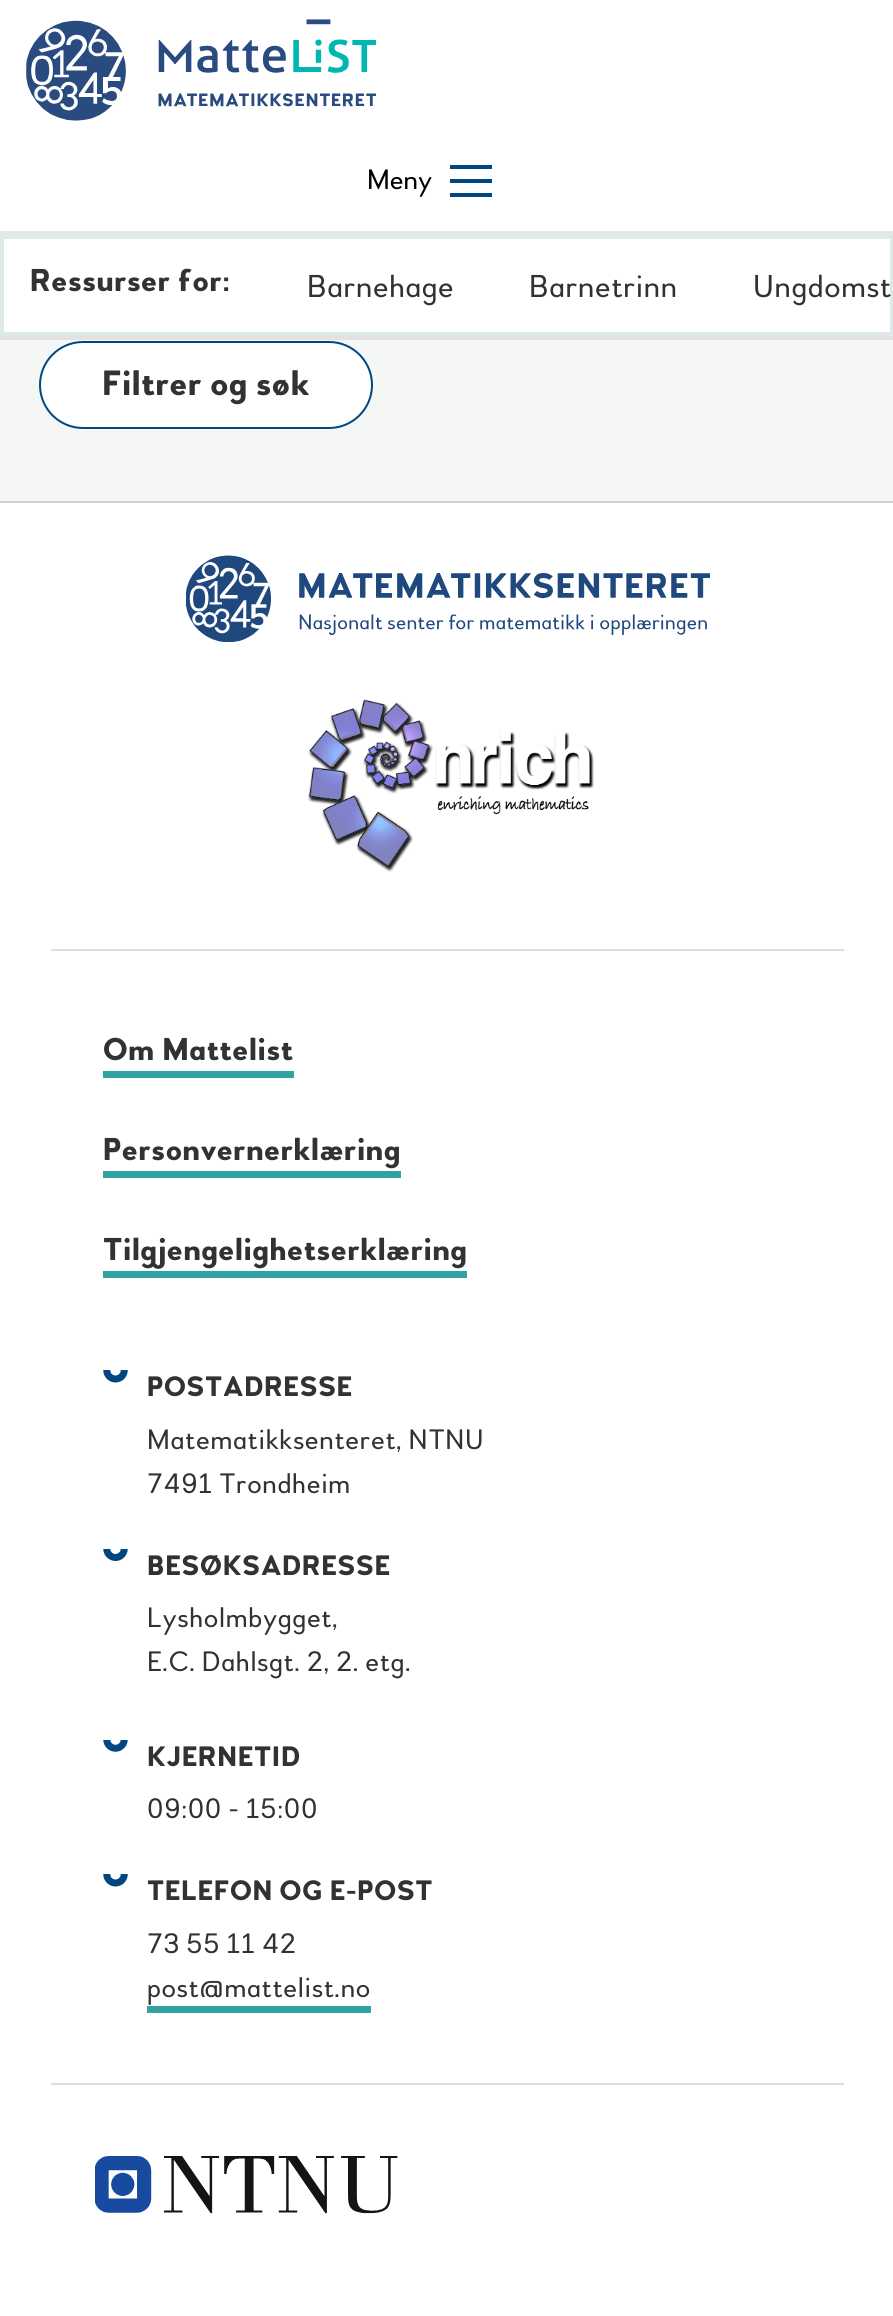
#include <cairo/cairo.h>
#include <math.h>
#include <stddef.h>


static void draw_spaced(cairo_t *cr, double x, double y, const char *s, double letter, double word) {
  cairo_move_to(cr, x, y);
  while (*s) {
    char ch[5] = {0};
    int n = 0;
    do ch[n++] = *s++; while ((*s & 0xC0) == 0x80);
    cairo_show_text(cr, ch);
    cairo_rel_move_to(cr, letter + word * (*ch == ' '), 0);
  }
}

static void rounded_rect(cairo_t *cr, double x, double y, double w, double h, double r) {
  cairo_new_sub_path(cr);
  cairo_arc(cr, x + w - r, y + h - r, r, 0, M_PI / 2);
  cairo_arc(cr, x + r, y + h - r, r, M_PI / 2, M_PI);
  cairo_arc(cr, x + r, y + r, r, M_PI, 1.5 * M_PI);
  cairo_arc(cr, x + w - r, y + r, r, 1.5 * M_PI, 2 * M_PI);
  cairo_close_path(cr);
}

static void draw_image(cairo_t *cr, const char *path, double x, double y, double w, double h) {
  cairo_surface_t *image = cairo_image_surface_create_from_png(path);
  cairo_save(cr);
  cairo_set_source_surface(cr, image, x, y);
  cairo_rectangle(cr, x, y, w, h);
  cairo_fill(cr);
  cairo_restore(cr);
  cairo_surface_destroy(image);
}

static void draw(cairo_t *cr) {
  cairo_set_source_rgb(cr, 244 / 255.0, 247 / 255.0, 246 / 255.0);
  cairo_paint(cr);
  cairo_set_source_rgb(cr, 1, 1, 1);
  cairo_rectangle(cr, 0, 0, 893, 332);
  cairo_fill(cr);
  cairo_set_source_rgb(cr, 226 / 255.0, 226 / 255.0, 226 / 255.0);
  cairo_rectangle(cr, 0, 336, 893, 4);
  cairo_fill(cr);
  cairo_set_source_rgb(cr, 224 / 255.0, 233 / 255.0, 233 / 255.0);
  cairo_rectangle(cr, 0, 231, 893, 4);
  cairo_fill(cr);
  draw_image(cr, "images/1.png", 26, 19, 350, 102);
  cairo_set_source_rgb(cr, 0, 70 / 255.0, 129 / 255.0);
  cairo_rectangle(cr, 450, 179, 42, 4);
  cairo_fill(cr);
  cairo_rectangle(cr, 450, 165, 42, 4);
  cairo_fill(cr);
  cairo_rectangle(cr, 450, 193, 42, 4);
  cairo_fill(cr);
  cairo_rectangle(cr, 2, 237, 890, 97);
  cairo_set_source_rgb(cr, 224 / 255.0, 233 / 255.0, 233 / 255.0);
  cairo_set_line_width(cr, 4);
  cairo_stroke(cr);
  cairo_set_source_rgb(cr, 1, 1, 1);
  rounded_rect(cr, 40, 342, 332, 86, 43);
  cairo_fill_preserve(cr);
  cairo_set_source_rgb(cr, 0, 70 / 255.0, 129 / 255.0);
  cairo_set_line_width(cr, 2);
  cairo_stroke(cr);
  cairo_set_source_rgb(cr, 1, 1, 1);
  cairo_rectangle(cr, 0, 503, 893, 1813);
  cairo_fill(cr);
  cairo_set_source_rgb(cr, 207 / 255.0, 211 / 255.0, 214 / 255.0);
  cairo_rectangle(cr, 0, 501, 893, 2);
  cairo_fill(cr);
  draw_image(cr, "images/2.png", 186, 555, 525, 87);
  draw_image(cr, "images/3.png", 308, 699, 286, 173);
  cairo_set_source_rgb(cr, 216 / 255.0, 224 / 255.0, 224 / 255.0);
  cairo_rectangle(cr, 51, 949, 793, 2);
  cairo_fill(cr);
  cairo_set_source_rgb(cr, 49 / 255.0, 160 / 255.0, 160 / 255.0);
  cairo_rectangle(cr, 103, 1071, 191, 7);
  cairo_fill(cr);
  cairo_rectangle(cr, 103, 1171, 298, 7);
  cairo_fill(cr);
  cairo_rectangle(cr, 103, 1271, 364, 7);
  cairo_fill(cr);
  draw_image(cr, "images/4.png", 103, 1370, 25, 13);
  draw_image(cr, "images/5.png", 103, 1549, 25, 12);
  draw_image(cr, "images/6.png", 103, 1740, 25, 12);
  draw_image(cr, "images/4.png", 103, 1874, 25, 13);
  cairo_rectangle(cr, 147, 2006, 224, 7);
  cairo_fill(cr);
  cairo_set_source_rgb(cr, 216 / 255.0, 224 / 255.0, 224 / 255.0);
  cairo_rectangle(cr, 51, 2083, 793, 2);
  cairo_fill(cr);
  draw_image(cr, "images/7.png", 95, 2156, 303, 58);
  cairo_select_font_face(cr, "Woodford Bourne", CAIRO_FONT_SLANT_NORMAL, CAIRO_FONT_WEIGHT_NORMAL);
  cairo_set_font_size(cr, 28);
  cairo_set_source_rgb(cr, 0, 0, 0);
  cairo_move_to(cr, 367, 189);
  cairo_show_text(cr, "Meny");
  cairo_select_font_face(cr, "Woodford Bourne", CAIRO_FONT_SLANT_NORMAL, CAIRO_FONT_WEIGHT_BOLD);
  cairo_set_font_size(cr, 31.5);
  cairo_set_source_rgb(cr, 49 / 255.0, 50 / 255.0, 51 / 255.0);
  draw_spaced(cr, 30, 291, "Ressurser for:", 0.7, 0);
  cairo_select_font_face(cr, "Woodford Bourne", CAIRO_FONT_SLANT_NORMAL, CAIRO_FONT_WEIGHT_NORMAL);
  draw_spaced(cr, 307, 297, "Barnehage", 0.7, 0);
  draw_spaced(cr, 529, 297, "Barnetrinn", 0.7, 0);
  draw_spaced(cr, 753, 297, "Ungdomst", 0.7, 0);
  cairo_select_font_face(cr, "Woodford Bourne", CAIRO_FONT_SLANT_NORMAL, CAIRO_FONT_WEIGHT_BOLD);
  cairo_set_font_size(cr, 35);
  draw_spaced(cr, 102, 395, "Filtrer og søk", 0.7, 0);
  cairo_set_font_size(cr, 31.5);
  draw_spaced(cr, 103, 1060, "Om Mattelist", 0.7, 0);
  draw_spaced(cr, 103, 1160, "Personvernerklæring", 0.7, 0);
  draw_spaced(cr, 103, 1260, "Tilgjengelighetserklæring", 0.7, 0);
  cairo_set_font_size(cr, 28);
  draw_spaced(cr, 147, 1396, "POSTADRESSE", 0.7, 0);
  cairo_select_font_face(cr, "Woodford Bourne", CAIRO_FONT_SLANT_NORMAL, CAIRO_FONT_WEIGHT_NORMAL);
  draw_spaced(cr, 147, 1449, "Matematikksenteret, NTNU", 0.7, 0);
  draw_spaced(cr, 147, 1493, "7491 Trondheim", 0.7, 0);
  cairo_select_font_face(cr, "Woodford Bourne", CAIRO_FONT_SLANT_NORMAL, CAIRO_FONT_WEIGHT_BOLD);
  draw_spaced(cr, 147, 1575, "BESØKSADRESSE", 0.7, 0);
  cairo_select_font_face(cr, "Woodford Bourne", CAIRO_FONT_SLANT_NORMAL, CAIRO_FONT_WEIGHT_NORMAL);
  draw_spaced(cr, 147, 1627, "Lysholmbygget,", 0.7, 0);
  draw_spaced(cr, 147, 1671, "E.C. Dahlsgt. 2, 2. etg.", 0.7, 0);
  cairo_select_font_face(cr, "Woodford Bourne", CAIRO_FONT_SLANT_NORMAL, CAIRO_FONT_WEIGHT_BOLD);
  draw_spaced(cr, 147, 1766, "KJERNETID", 0.7, 0);
  cairo_select_font_face(cr, "Woodford Bourne", CAIRO_FONT_SLANT_NORMAL, CAIRO_FONT_WEIGHT_NORMAL);
  draw_spaced(cr, 147, 1818, "09:00 - 15:00", 0.7, 0);
  cairo_select_font_face(cr, "Woodford Bourne", CAIRO_FONT_SLANT_NORMAL, CAIRO_FONT_WEIGHT_BOLD);
  draw_spaced(cr, 147, 1900, "TELEFON OG E-POST", 0.7, 0);
  cairo_select_font_face(cr, "Woodford Bourne", CAIRO_FONT_SLANT_NORMAL, CAIRO_FONT_WEIGHT_NORMAL);
  draw_spaced(cr, 147, 1953, "73 55 11 42", 0.7, 0);
  draw_spaced(cr, 147, 1997, "post@mattelist.no", 0.7, 0);
}

int main(void) {
  cairo_surface_t *surface = cairo_image_surface_create(CAIRO_FORMAT_RGB24, 893, 2316);
  cairo_t *cr = cairo_create(surface);
  cairo_font_options_t *options = cairo_font_options_create();
  cairo_font_options_set_hint_metrics(options, CAIRO_HINT_METRICS_OFF);
  cairo_font_options_set_hint_style(options, CAIRO_HINT_STYLE_NONE);
  cairo_set_font_options(cr, options);
  cairo_set_miter_limit(cr, 4);
  draw(cr);
  cairo_surface_write_to_png(surface, "out.png");
  cairo_font_options_destroy(options);
  cairo_destroy(cr);
  cairo_surface_destroy(surface);
  return 0;
}
